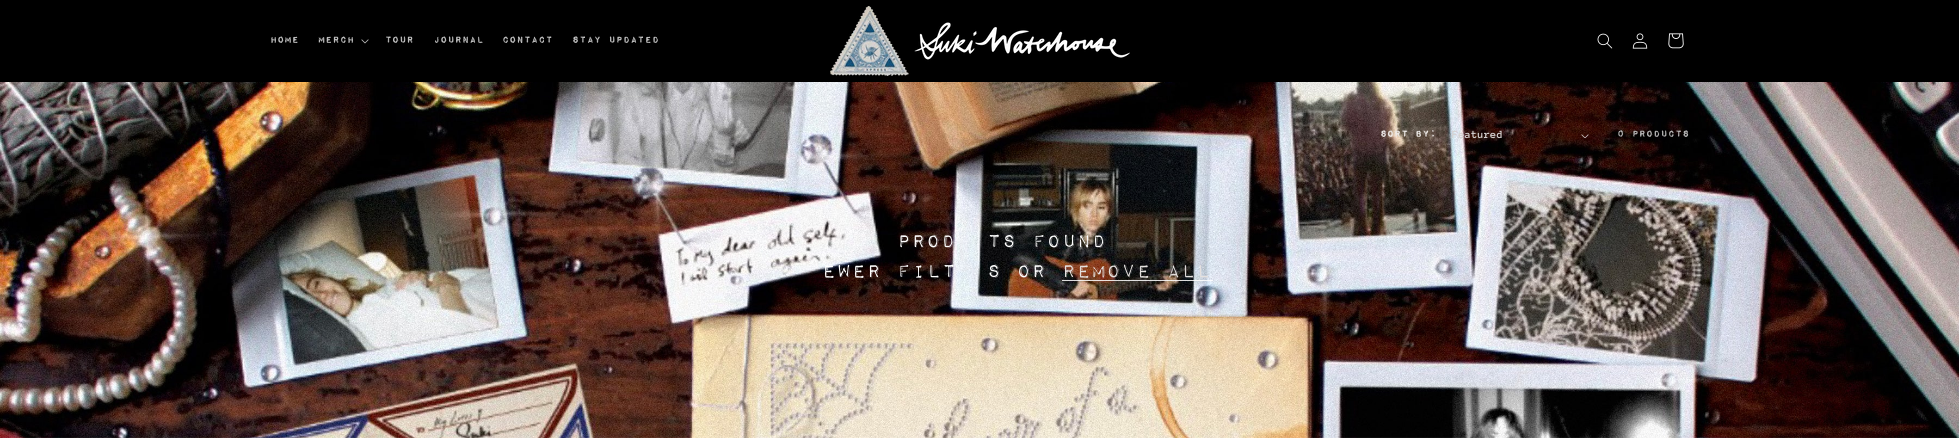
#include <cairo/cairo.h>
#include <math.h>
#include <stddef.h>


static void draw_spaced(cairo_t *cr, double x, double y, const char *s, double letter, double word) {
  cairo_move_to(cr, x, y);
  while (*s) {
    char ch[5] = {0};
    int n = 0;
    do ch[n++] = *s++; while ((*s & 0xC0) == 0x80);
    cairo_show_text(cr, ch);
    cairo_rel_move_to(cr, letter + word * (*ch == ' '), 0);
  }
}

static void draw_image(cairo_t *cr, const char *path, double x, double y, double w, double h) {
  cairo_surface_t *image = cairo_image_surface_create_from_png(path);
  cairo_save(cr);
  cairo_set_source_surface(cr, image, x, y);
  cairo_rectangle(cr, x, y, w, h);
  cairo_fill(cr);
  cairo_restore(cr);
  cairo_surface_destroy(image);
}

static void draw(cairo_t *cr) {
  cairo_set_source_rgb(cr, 1, 1, 1);
  cairo_paint(cr);
  draw_image(cr, "images/1.png", 0, 82, 1959, 356);
  cairo_set_source_rgb(cr, 0, 0, 0);
  cairo_rectangle(cr, 0, 0, 1959, 82);
  cairo_fill(cr);
  draw_image(cr, "images/2.png", 361, 39, 8, 5);
  draw_image(cr, "images/3.png", 830, 6, 300, 70);
  draw_image(cr, "images/4.png", 1597, 33, 16, 16);
  draw_image(cr, "images/5.png", 1632, 33, 16, 16);
  draw_image(cr, "images/6.png", 1668, 33, 16, 16);
  draw_image(cr, "images/7.png", 1581, 134, 8, 4);
  cairo_set_source_rgba(cr, 1, 1, 1, 0.85);
  cairo_rectangle(cr, 1062, 280, 151, 1);
  cairo_fill(cr);
  cairo_select_font_face(cr, "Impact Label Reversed", CAIRO_FONT_SLANT_NORMAL, CAIRO_FONT_WEIGHT_BOLD);
  cairo_set_font_size(cr, 11.25);
  cairo_set_source_rgb(cr, 191 / 255.0, 191 / 255.0, 191 / 255.0);
  draw_spaced(cr, 270, 43, "Home", 0.5, 0);
  draw_spaced(cr, 318, 43, "Merch", 0.5, 0);
  draw_spaced(cr, 385, 43, "Tour", 0.5, 0);
  draw_spaced(cr, 433, 43, "Journal", 0.5, 0);
  draw_spaced(cr, 502, 43, "Contact", 0.5, 0);
  draw_spaced(cr, 572, 43, "Stay Updated", 0.5, 0);
  cairo_set_source_rgb(cr, 236 / 255.0, 233 / 255.0, 231 / 255.0);
  draw_spaced(cr, 1380, 137, "Sort by:", 0.25, 0);
  cairo_select_font_face(cr, "Anonymous Pro", CAIRO_FONT_SLANT_NORMAL, CAIRO_FONT_WEIGHT_BOLD);
  cairo_set_source_rgb(cr, 213 / 255.0, 208 / 255.0, 208 / 255.0);
  draw_spaced(cr, 1452, 138, "Featured", 0.25, 0);
  cairo_select_font_face(cr, "Impact Label Reversed", CAIRO_FONT_SLANT_NORMAL, CAIRO_FONT_WEIGHT_BOLD);
  cairo_set_source_rgb(cr, 180 / 255.0, 179 / 255.0, 179 / 255.0);
  draw_spaced(cr, 1617, 137, "0 products", 0.5, 0);
  cairo_select_font_face(cr, "Impact Label Reversed", CAIRO_FONT_SLANT_NORMAL, CAIRO_FONT_WEIGHT_NORMAL);
  cairo_set_font_size(cr, 24);
  cairo_set_source_rgb(cr, 1, 1, 1);
  draw_spaced(cr, 897, 248, "prod", 0.5, 0);
  draw_spaced(cr, 987, 248, "ts found", 0.5, 0);
  draw_spaced(cr, 822, 278, "ewer filt", 0.5, 0);
  draw_spaced(cr, 987, 278, "s or", 0.5, 0);
  cairo_set_source_rgb(cr, 229 / 255.0, 225 / 255.0, 223 / 255.0);
  draw_spaced(cr, 1062, 278, "remove all", 0.5, 0);
}

int main(void) {
  cairo_surface_t *surface = cairo_image_surface_create(CAIRO_FORMAT_RGB24, 1959, 438);
  cairo_t *cr = cairo_create(surface);
  cairo_font_options_t *options = cairo_font_options_create();
  cairo_font_options_set_hint_metrics(options, CAIRO_HINT_METRICS_OFF);
  cairo_font_options_set_hint_style(options, CAIRO_HINT_STYLE_NONE);
  cairo_set_font_options(cr, options);
  cairo_set_miter_limit(cr, 4);
  draw(cr);
  cairo_surface_write_to_png(surface, "out.png");
  cairo_font_options_destroy(options);
  cairo_destroy(cr);
  cairo_surface_destroy(surface);
  return 0;
}
